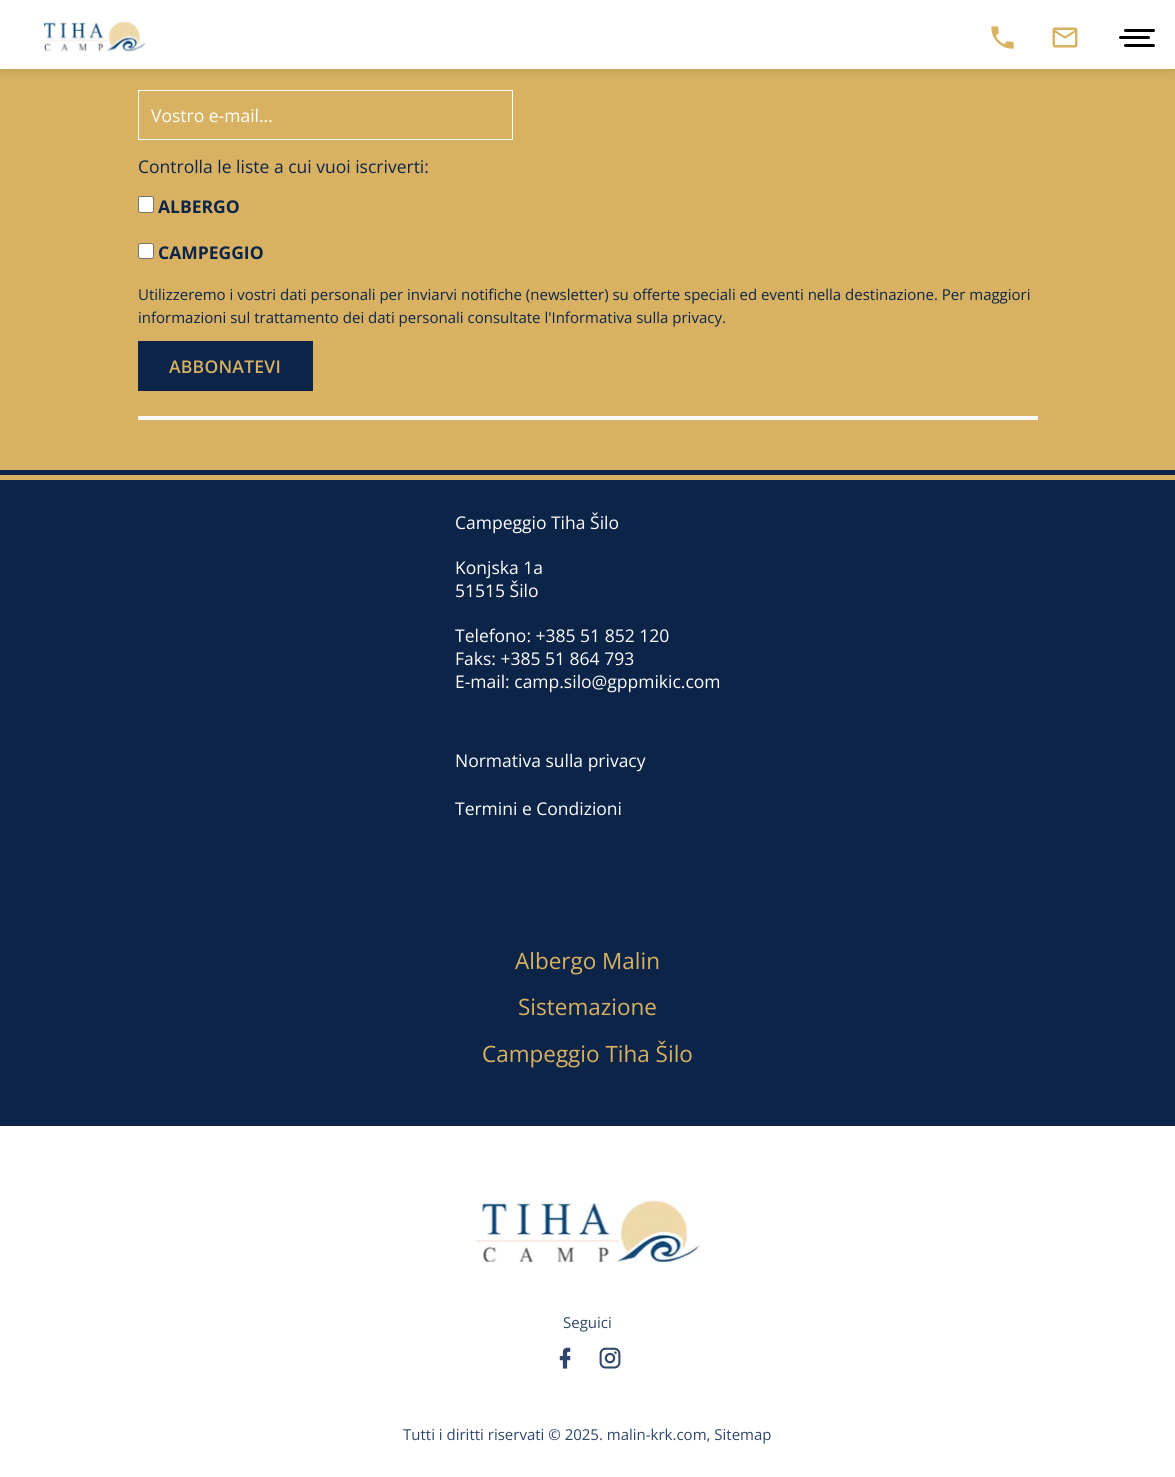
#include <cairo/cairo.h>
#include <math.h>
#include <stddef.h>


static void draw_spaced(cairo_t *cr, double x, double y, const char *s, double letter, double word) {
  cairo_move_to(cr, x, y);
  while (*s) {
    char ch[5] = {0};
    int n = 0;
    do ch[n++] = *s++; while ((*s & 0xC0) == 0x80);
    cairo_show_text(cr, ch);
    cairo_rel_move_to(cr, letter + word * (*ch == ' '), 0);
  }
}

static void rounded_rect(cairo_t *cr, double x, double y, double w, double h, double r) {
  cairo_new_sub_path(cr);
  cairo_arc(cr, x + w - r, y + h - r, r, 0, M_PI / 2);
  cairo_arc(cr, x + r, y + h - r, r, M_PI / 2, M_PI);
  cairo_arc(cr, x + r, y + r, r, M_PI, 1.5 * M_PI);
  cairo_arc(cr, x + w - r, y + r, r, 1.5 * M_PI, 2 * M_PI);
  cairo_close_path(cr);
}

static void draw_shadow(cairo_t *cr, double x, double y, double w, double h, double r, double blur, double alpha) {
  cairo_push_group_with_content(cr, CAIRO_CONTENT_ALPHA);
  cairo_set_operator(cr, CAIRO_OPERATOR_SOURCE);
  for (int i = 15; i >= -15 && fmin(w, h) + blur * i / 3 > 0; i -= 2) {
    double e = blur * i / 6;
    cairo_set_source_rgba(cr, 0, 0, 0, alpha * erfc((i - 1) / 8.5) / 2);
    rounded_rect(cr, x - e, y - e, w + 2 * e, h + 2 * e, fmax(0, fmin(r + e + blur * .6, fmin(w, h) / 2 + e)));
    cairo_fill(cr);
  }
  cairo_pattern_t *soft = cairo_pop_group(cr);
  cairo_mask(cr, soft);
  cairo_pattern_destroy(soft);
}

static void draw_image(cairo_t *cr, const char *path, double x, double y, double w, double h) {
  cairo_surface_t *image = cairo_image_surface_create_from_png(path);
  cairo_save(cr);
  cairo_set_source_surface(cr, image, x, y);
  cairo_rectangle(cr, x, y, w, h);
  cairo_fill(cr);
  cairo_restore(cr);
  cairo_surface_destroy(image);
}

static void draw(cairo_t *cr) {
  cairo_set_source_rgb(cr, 216 / 255.0, 178 / 255.0, 98 / 255.0);
  cairo_paint(cr);
  cairo_set_source_rgb(cr, 0, 0, 0);
  draw_shadow(cr, 0, 0, 1175, 69, 0, 6, 0.15);
  cairo_set_source_rgb(cr, 1, 1, 1);
  cairo_rectangle(cr, 0, 0, 1175, 69);
  cairo_fill(cr);
  draw_image(cr, "images/1.png", 38, 21, 109, 31);
  draw_image(cr, "images/2.png", 991, 26, 23, 23);
  draw_image(cr, "images/3.png", 1052, 27, 26, 21);
  cairo_set_source_rgb(cr, 0, 0, 0);
  rounded_rect(cr, 1124, 29, 31, 3, 1.5);
  cairo_fill(cr);
  rounded_rect(cr, 1119, 36, 31, 3, 1.5);
  cairo_fill(cr);
  rounded_rect(cr, 1124, 44, 31, 3, 1.5);
  cairo_fill(cr);
  cairo_set_source_rgb(cr, 12 / 255.0, 36 / 255.0, 72 / 255.0);
  cairo_rectangle(cr, 0, 470, 1175, 5);
  cairo_fill(cr);
  cairo_rectangle(cr, 138.5, 90.5, 374, 49);
  cairo_set_source_rgb(cr, 1, 1, 1);
  cairo_set_line_width(cr, 1);
  cairo_stroke(cr);
  rounded_rect(cr, 138.5, 196.5, 15, 16, 2);
  cairo_fill_preserve(cr);
  cairo_set_source_rgb(cr, 118 / 255.0, 118 / 255.0, 118 / 255.0);
  cairo_stroke(cr);
  cairo_set_source_rgb(cr, 1, 1, 1);
  rounded_rect(cr, 138.5, 243.5, 15, 15, 2);
  cairo_fill_preserve(cr);
  cairo_set_source_rgb(cr, 118 / 255.0, 118 / 255.0, 118 / 255.0);
  cairo_stroke(cr);
  cairo_set_source_rgb(cr, 12 / 255.0, 36 / 255.0, 72 / 255.0);
  cairo_rectangle(cr, 138, 341, 175, 50);
  cairo_fill(cr);
  cairo_set_source_rgb(cr, 249 / 255.0, 249 / 255.0, 249 / 255.0);
  cairo_rectangle(cr, 138, 416, 900, 4);
  cairo_fill(cr);
  cairo_set_source_rgb(cr, 12 / 255.0, 36 / 255.0, 72 / 255.0);
  cairo_rectangle(cr, 0, 480, 1175, 646);
  cairo_fill(cr);
  cairo_set_source_rgb(cr, 1, 1, 1);
  cairo_rectangle(cr, 0, 1126, 1175, 351);
  cairo_fill(cr);
  draw_image(cr, "images/4.png", 471, 1200, 231, 65);
  draw_image(cr, "images/5.png", 559, 1347, 12, 22);
  draw_image(cr, "images/6.png", 599, 1347, 22, 22);
  cairo_select_font_face(cr, "Open Sans", CAIRO_FONT_SLANT_NORMAL, CAIRO_FONT_WEIGHT_NORMAL);
  cairo_set_font_size(cr, 17.5);
  cairo_move_to(cr, 151, 122);
  cairo_show_text(cr, "Vostro e-mail...");
  cairo_set_source_rgb(cr, 12 / 255.0, 36 / 255.0, 72 / 255.0);
  cairo_move_to(cr, 138, 173);
  cairo_show_text(cr, "Controlla le liste a cui vuoi iscriverti:");
  cairo_select_font_face(cr, "Open Sans", CAIRO_FONT_SLANT_NORMAL, CAIRO_FONT_WEIGHT_BOLD);
  cairo_move_to(cr, 158, 213);
  cairo_show_text(cr, "ALBERGO");
  cairo_move_to(cr, 158, 259);
  cairo_show_text(cr, "CAMPEGGIO");
  cairo_select_font_face(cr, "Open Sans", CAIRO_FONT_SLANT_NORMAL, CAIRO_FONT_WEIGHT_NORMAL);
  cairo_set_font_size(cr, 15);
  cairo_move_to(cr, 138, 300);
  cairo_show_text(cr, "Utilizzeremo i vostri dati personali per inviarvi notifiche (newsletter) su offerte speciali ed eventi nella destinazione. Per maggiori");
  cairo_move_to(cr, 138, 323);
  cairo_show_text(cr, "informazioni sul trattamento dei dati personali consultate l'Informativa sulla privacy.");
  cairo_select_font_face(cr, "Open Sans SemiBold", CAIRO_FONT_SLANT_NORMAL, CAIRO_FONT_WEIGHT_NORMAL);
  cairo_set_font_size(cr, 17.5);
  cairo_set_source_rgb(cr, 216 / 255.0, 178 / 255.0, 98 / 255.0);
  draw_spaced(cr, 169, 373, "ABBONATEVI", 0.25, 0);
  cairo_select_font_face(cr, "Open Sans", CAIRO_FONT_SLANT_NORMAL, CAIRO_FONT_WEIGHT_NORMAL);
  cairo_set_source_rgb(cr, 1, 1, 1);
  cairo_move_to(cr, 455, 529);
  cairo_show_text(cr, "Campeggio Tiha Šilo");
  cairo_move_to(cr, 455, 574);
  cairo_show_text(cr, "Konjska 1a");
  cairo_move_to(cr, 455, 597);
  cairo_show_text(cr, "51515 Šilo");
  cairo_move_to(cr, 455, 642);
  cairo_show_text(cr, "Telefono: +385 51 852 120");
  cairo_move_to(cr, 455, 665);
  cairo_show_text(cr, "Faks: +385 51 864 793");
  cairo_move_to(cr, 455, 688);
  cairo_show_text(cr, "E-mail: camp.silo@gppmikic.com");
  cairo_move_to(cr, 455, 767);
  cairo_show_text(cr, "Normativa sulla privacy");
  cairo_move_to(cr, 455, 815);
  cairo_show_text(cr, "Termini e Condizioni");
  cairo_set_font_size(cr, 22.5);
  cairo_set_source_rgb(cr, 216 / 255.0, 178 / 255.0, 98 / 255.0);
  cairo_move_to(cr, 515, 969);
  cairo_show_text(cr, "Albergo Malin");
  cairo_move_to(cr, 518, 1015);
  cairo_show_text(cr, "Sistemazione");
  cairo_move_to(cr, 482, 1062);
  cairo_show_text(cr, "Campeggio Tiha Šilo");
  cairo_set_font_size(cr, 15);
  cairo_set_source_rgb(cr, 46 / 255.0, 70 / 255.0, 107 / 255.0);
  cairo_move_to(cr, 563, 1328);
  cairo_show_text(cr, "Seguici");
  cairo_move_to(cr, 403, 1440);
  cairo_show_text(cr, "Tutti i diritti riservati © 2025. malin-krk.com, Sitemap");
}

int main(void) {
  cairo_surface_t *surface = cairo_image_surface_create(CAIRO_FORMAT_RGB24, 1175, 1477);
  cairo_t *cr = cairo_create(surface);
  cairo_font_options_t *options = cairo_font_options_create();
  cairo_font_options_set_hint_metrics(options, CAIRO_HINT_METRICS_OFF);
  cairo_font_options_set_hint_style(options, CAIRO_HINT_STYLE_NONE);
  cairo_set_font_options(cr, options);
  cairo_set_miter_limit(cr, 4);
  draw(cr);
  cairo_surface_write_to_png(surface, "out.png");
  cairo_font_options_destroy(options);
  cairo_destroy(cr);
  cairo_surface_destroy(surface);
  return 0;
}
